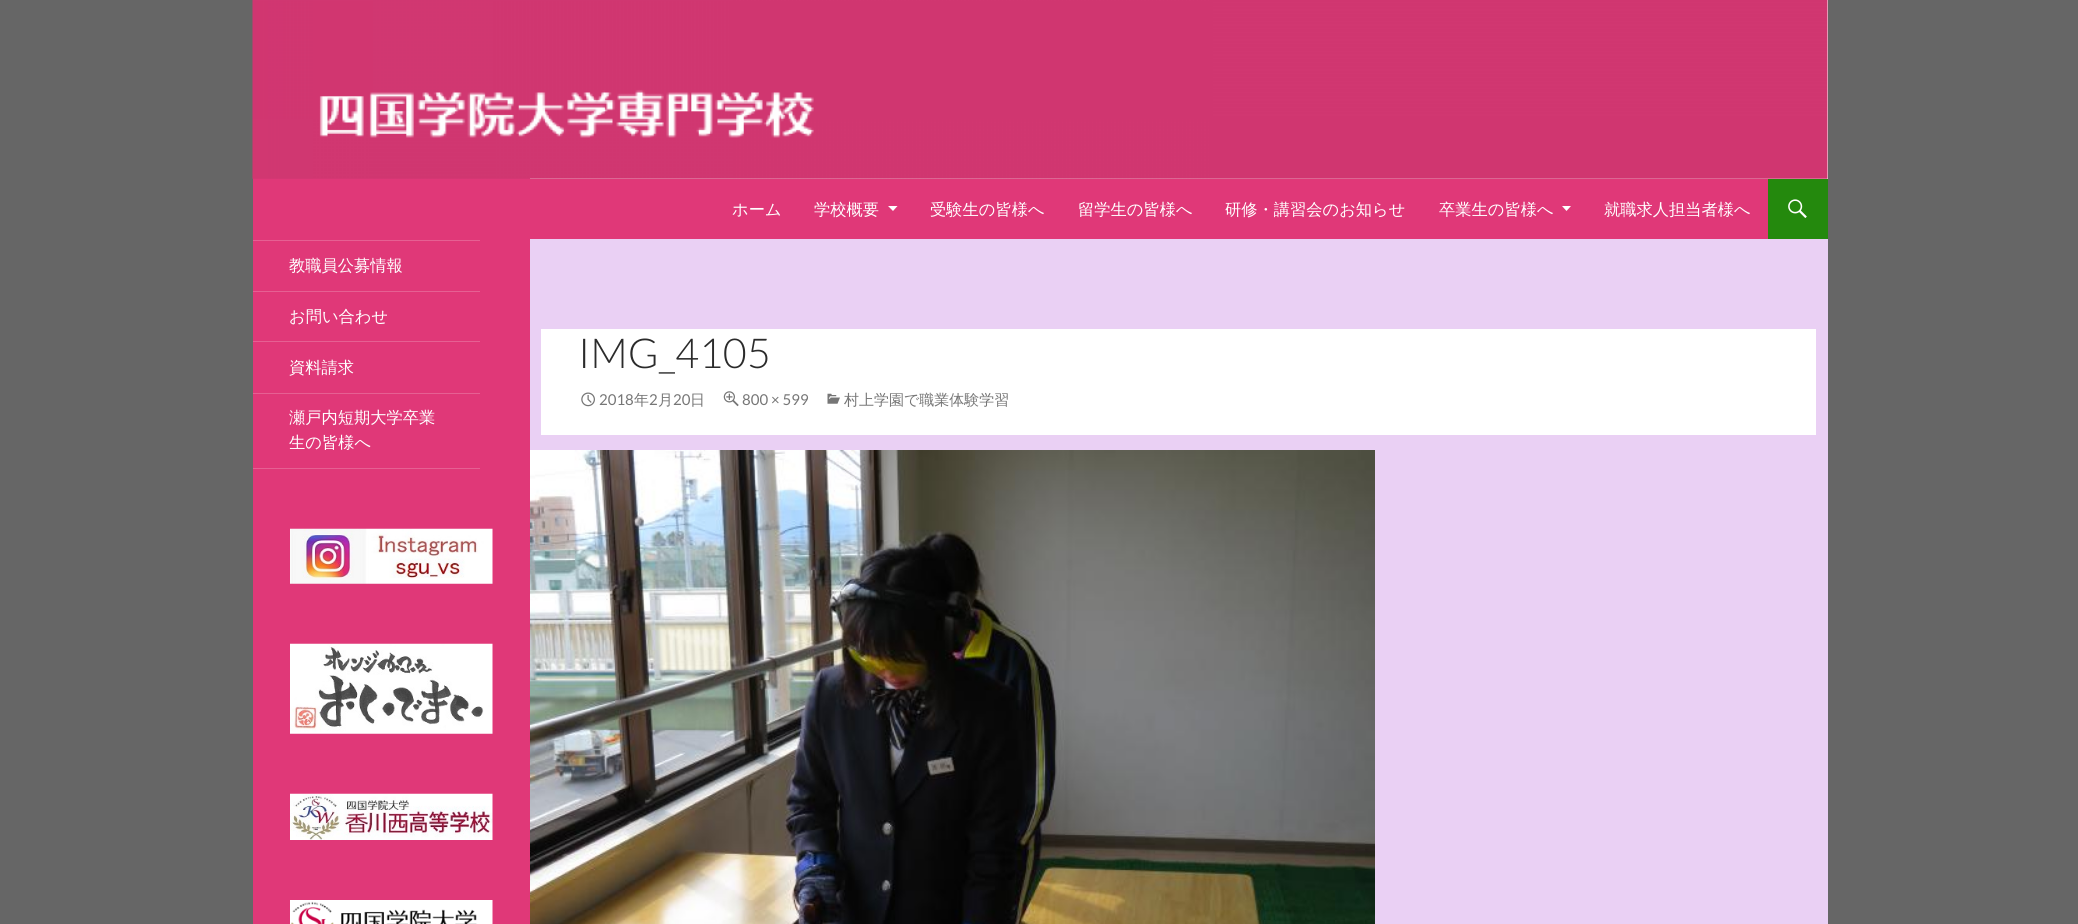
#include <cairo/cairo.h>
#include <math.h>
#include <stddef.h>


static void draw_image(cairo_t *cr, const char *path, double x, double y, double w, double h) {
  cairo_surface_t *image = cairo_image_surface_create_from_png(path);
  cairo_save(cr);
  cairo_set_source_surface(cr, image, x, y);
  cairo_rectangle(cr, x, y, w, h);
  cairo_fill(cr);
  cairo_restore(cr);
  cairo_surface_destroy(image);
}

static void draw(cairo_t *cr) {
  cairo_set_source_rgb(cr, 102 / 255.0, 102 / 255.0, 102 / 255.0);
  cairo_paint(cr);
  cairo_set_source_rgb(cr, 1, 1, 1);
  cairo_rectangle(cr, 530, 0, 1298, 179);
  cairo_fill(cr);
  cairo_set_source_rgb(cr, 224 / 255.0, 56 / 255.0, 120 / 255.0);
  cairo_rectangle(cr, 253, 178, 277, 746);
  cairo_fill(cr);
  draw_image(cr, "images/1.png", 252, 0, 1576, 179);
  cairo_rectangle(cr, 530, 179, 1238, 60);
  cairo_fill(cr);
  cairo_set_source_rgb(cr, 1, 1, 1);
  cairo_new_path(cr);
  cairo_move_to(cr, 888, 206);
  cairo_line_to(cr, 893, 211);
  cairo_line_to(cr, 897.5, 206);
  cairo_close_path(cr);
  cairo_fill(cr);
  cairo_new_path(cr);
  cairo_move_to(cr, 1562, 206);
  cairo_line_to(cr, 1566.5, 211);
  cairo_line_to(cr, 1571, 206);
  cairo_close_path(cr);
  cairo_fill(cr);
  cairo_set_source_rgb(cr, 36 / 255.0, 137 / 255.0, 13 / 255.0);
  cairo_rectangle(cr, 1768, 179, 60, 60);
  cairo_fill(cr);
  draw_image(cr, "images/2.png", 1788, 199, 19, 19);
  cairo_set_source_rgb(cr, 234 / 255.0, 208 / 255.0, 244 / 255.0);
  cairo_rectangle(cr, 530, 239, 1298, 685);
  cairo_fill(cr);
  cairo_set_source_rgb(cr, 230 / 255.0, 96 / 255.0, 147 / 255.0);
  cairo_rectangle(cr, 253, 468, 227, 1);
  cairo_fill(cr);
  cairo_rectangle(cr, 253, 240, 227, 1);
  cairo_fill(cr);
  cairo_rectangle(cr, 253, 291, 227, 1);
  cairo_fill(cr);
  cairo_rectangle(cr, 253, 341, 227, 1);
  cairo_fill(cr);
  cairo_rectangle(cr, 253, 393, 227, 1);
  cairo_fill(cr);
  draw_image(cr, "images/3.png", 290, 528, 203, 56);
  draw_image(cr, "images/4.png", 290, 643, 203, 91);
  draw_image(cr, "images/5.png", 290, 793, 203, 47);
  draw_image(cr, "images/6.png", 290, 900, 203, 24);
  cairo_set_source_rgb(cr, 1, 1, 1);
  cairo_rectangle(cr, 541, 329, 1275, 106);
  cairo_fill(cr);
  draw_image(cr, "images/7.png", 581, 392, 14, 15);
  draw_image(cr, "images/8.png", 723, 391, 16, 16);
  draw_image(cr, "images/9.png", 827, 393, 13, 11);
  draw_image(cr, "images/10.png", 530, 450, 845, 474);
  cairo_select_font_face(cr, "WenQuanYi Zen Hei Medium", CAIRO_FONT_SLANT_NORMAL, CAIRO_FONT_WEIGHT_NORMAL);
  cairo_set_font_size(cr, 16.25);
  cairo_move_to(cr, 732, 215);
  cairo_show_text(cr, "ホーム");
  cairo_move_to(cr, 814, 215);
  cairo_show_text(cr, "学校概要");
  cairo_move_to(cr, 930, 215);
  cairo_show_text(cr, "受験生の皆様へ");
  cairo_move_to(cr, 1078, 215);
  cairo_show_text(cr, "留学生の皆様へ");
  cairo_move_to(cr, 1225, 215);
  cairo_show_text(cr, "研修・講習会のお知らせ");
  cairo_move_to(cr, 1439, 215);
  cairo_show_text(cr, "卒業生の皆様へ");
  cairo_move_to(cr, 1604, 215);
  cairo_show_text(cr, "就職求人担当者様へ");
  cairo_move_to(cr, 289, 271);
  cairo_show_text(cr, "教職員公募情報");
  cairo_move_to(cr, 289, 322);
  cairo_show_text(cr, "お問い合わせ");
  cairo_move_to(cr, 289, 373);
  cairo_show_text(cr, "資料請求");
  cairo_move_to(cr, 289, 423);
  cairo_show_text(cr, "瀬戸内短期大学卒業");
  cairo_move_to(cr, 289, 448);
  cairo_show_text(cr, "生の皆様へ");
  cairo_select_font_face(cr, "Lato Light", CAIRO_FONT_SLANT_NORMAL, CAIRO_FONT_WEIGHT_NORMAL);
  cairo_set_font_size(cr, 41.25);
  cairo_set_source_rgb(cr, 43 / 255.0, 43 / 255.0, 43 / 255.0);
  cairo_move_to(cr, 578, 368);
  cairo_show_text(cr, "IMG_4105");
  cairo_select_font_face(cr, "Lato", CAIRO_FONT_SLANT_NORMAL, CAIRO_FONT_WEIGHT_NORMAL);
  cairo_set_font_size(cr, 15);
  cairo_set_source_rgb(cr, 118 / 255.0, 118 / 255.0, 118 / 255.0);
  cairo_move_to(cr, 599, 405);
  cairo_show_text(cr, "2018");
  cairo_select_font_face(cr, "WenQuanYi Zen Hei Medium", CAIRO_FONT_SLANT_NORMAL, CAIRO_FONT_WEIGHT_NORMAL);
  cairo_move_to(cr, 634, 405);
  cairo_show_text(cr, "年");
  cairo_select_font_face(cr, "Lato", CAIRO_FONT_SLANT_NORMAL, CAIRO_FONT_WEIGHT_NORMAL);
  cairo_move_to(cr, 649, 405);
  cairo_show_text(cr, "2");
  cairo_select_font_face(cr, "WenQuanYi Zen Hei Medium", CAIRO_FONT_SLANT_NORMAL, CAIRO_FONT_WEIGHT_NORMAL);
  cairo_move_to(cr, 658, 405);
  cairo_show_text(cr, "月");
  cairo_select_font_face(cr, "Lato", CAIRO_FONT_SLANT_NORMAL, CAIRO_FONT_WEIGHT_NORMAL);
  cairo_move_to(cr, 673, 405);
  cairo_show_text(cr, "20");
  cairo_select_font_face(cr, "WenQuanYi Zen Hei Medium", CAIRO_FONT_SLANT_NORMAL, CAIRO_FONT_WEIGHT_NORMAL);
  cairo_move_to(cr, 690, 405);
  cairo_show_text(cr, "日");
  cairo_select_font_face(cr, "Lato", CAIRO_FONT_SLANT_NORMAL, CAIRO_FONT_WEIGHT_NORMAL);
  cairo_move_to(cr, 742, 405);
  cairo_show_text(cr, "800 × 599");
  cairo_select_font_face(cr, "WenQuanYi Zen Hei Medium", CAIRO_FONT_SLANT_NORMAL, CAIRO_FONT_WEIGHT_NORMAL);
  cairo_move_to(cr, 844, 405);
  cairo_show_text(cr, "村上学園で職業体験学習");
}

int main(void) {
  cairo_surface_t *surface = cairo_image_surface_create(CAIRO_FORMAT_RGB24, 2078, 924);
  cairo_t *cr = cairo_create(surface);
  cairo_font_options_t *options = cairo_font_options_create();
  cairo_font_options_set_hint_metrics(options, CAIRO_HINT_METRICS_OFF);
  cairo_font_options_set_hint_style(options, CAIRO_HINT_STYLE_NONE);
  cairo_set_font_options(cr, options);
  cairo_set_miter_limit(cr, 4);
  draw(cr);
  cairo_surface_write_to_png(surface, "out.png");
  cairo_font_options_destroy(options);
  cairo_destroy(cr);
  cairo_surface_destroy(surface);
  return 0;
}
